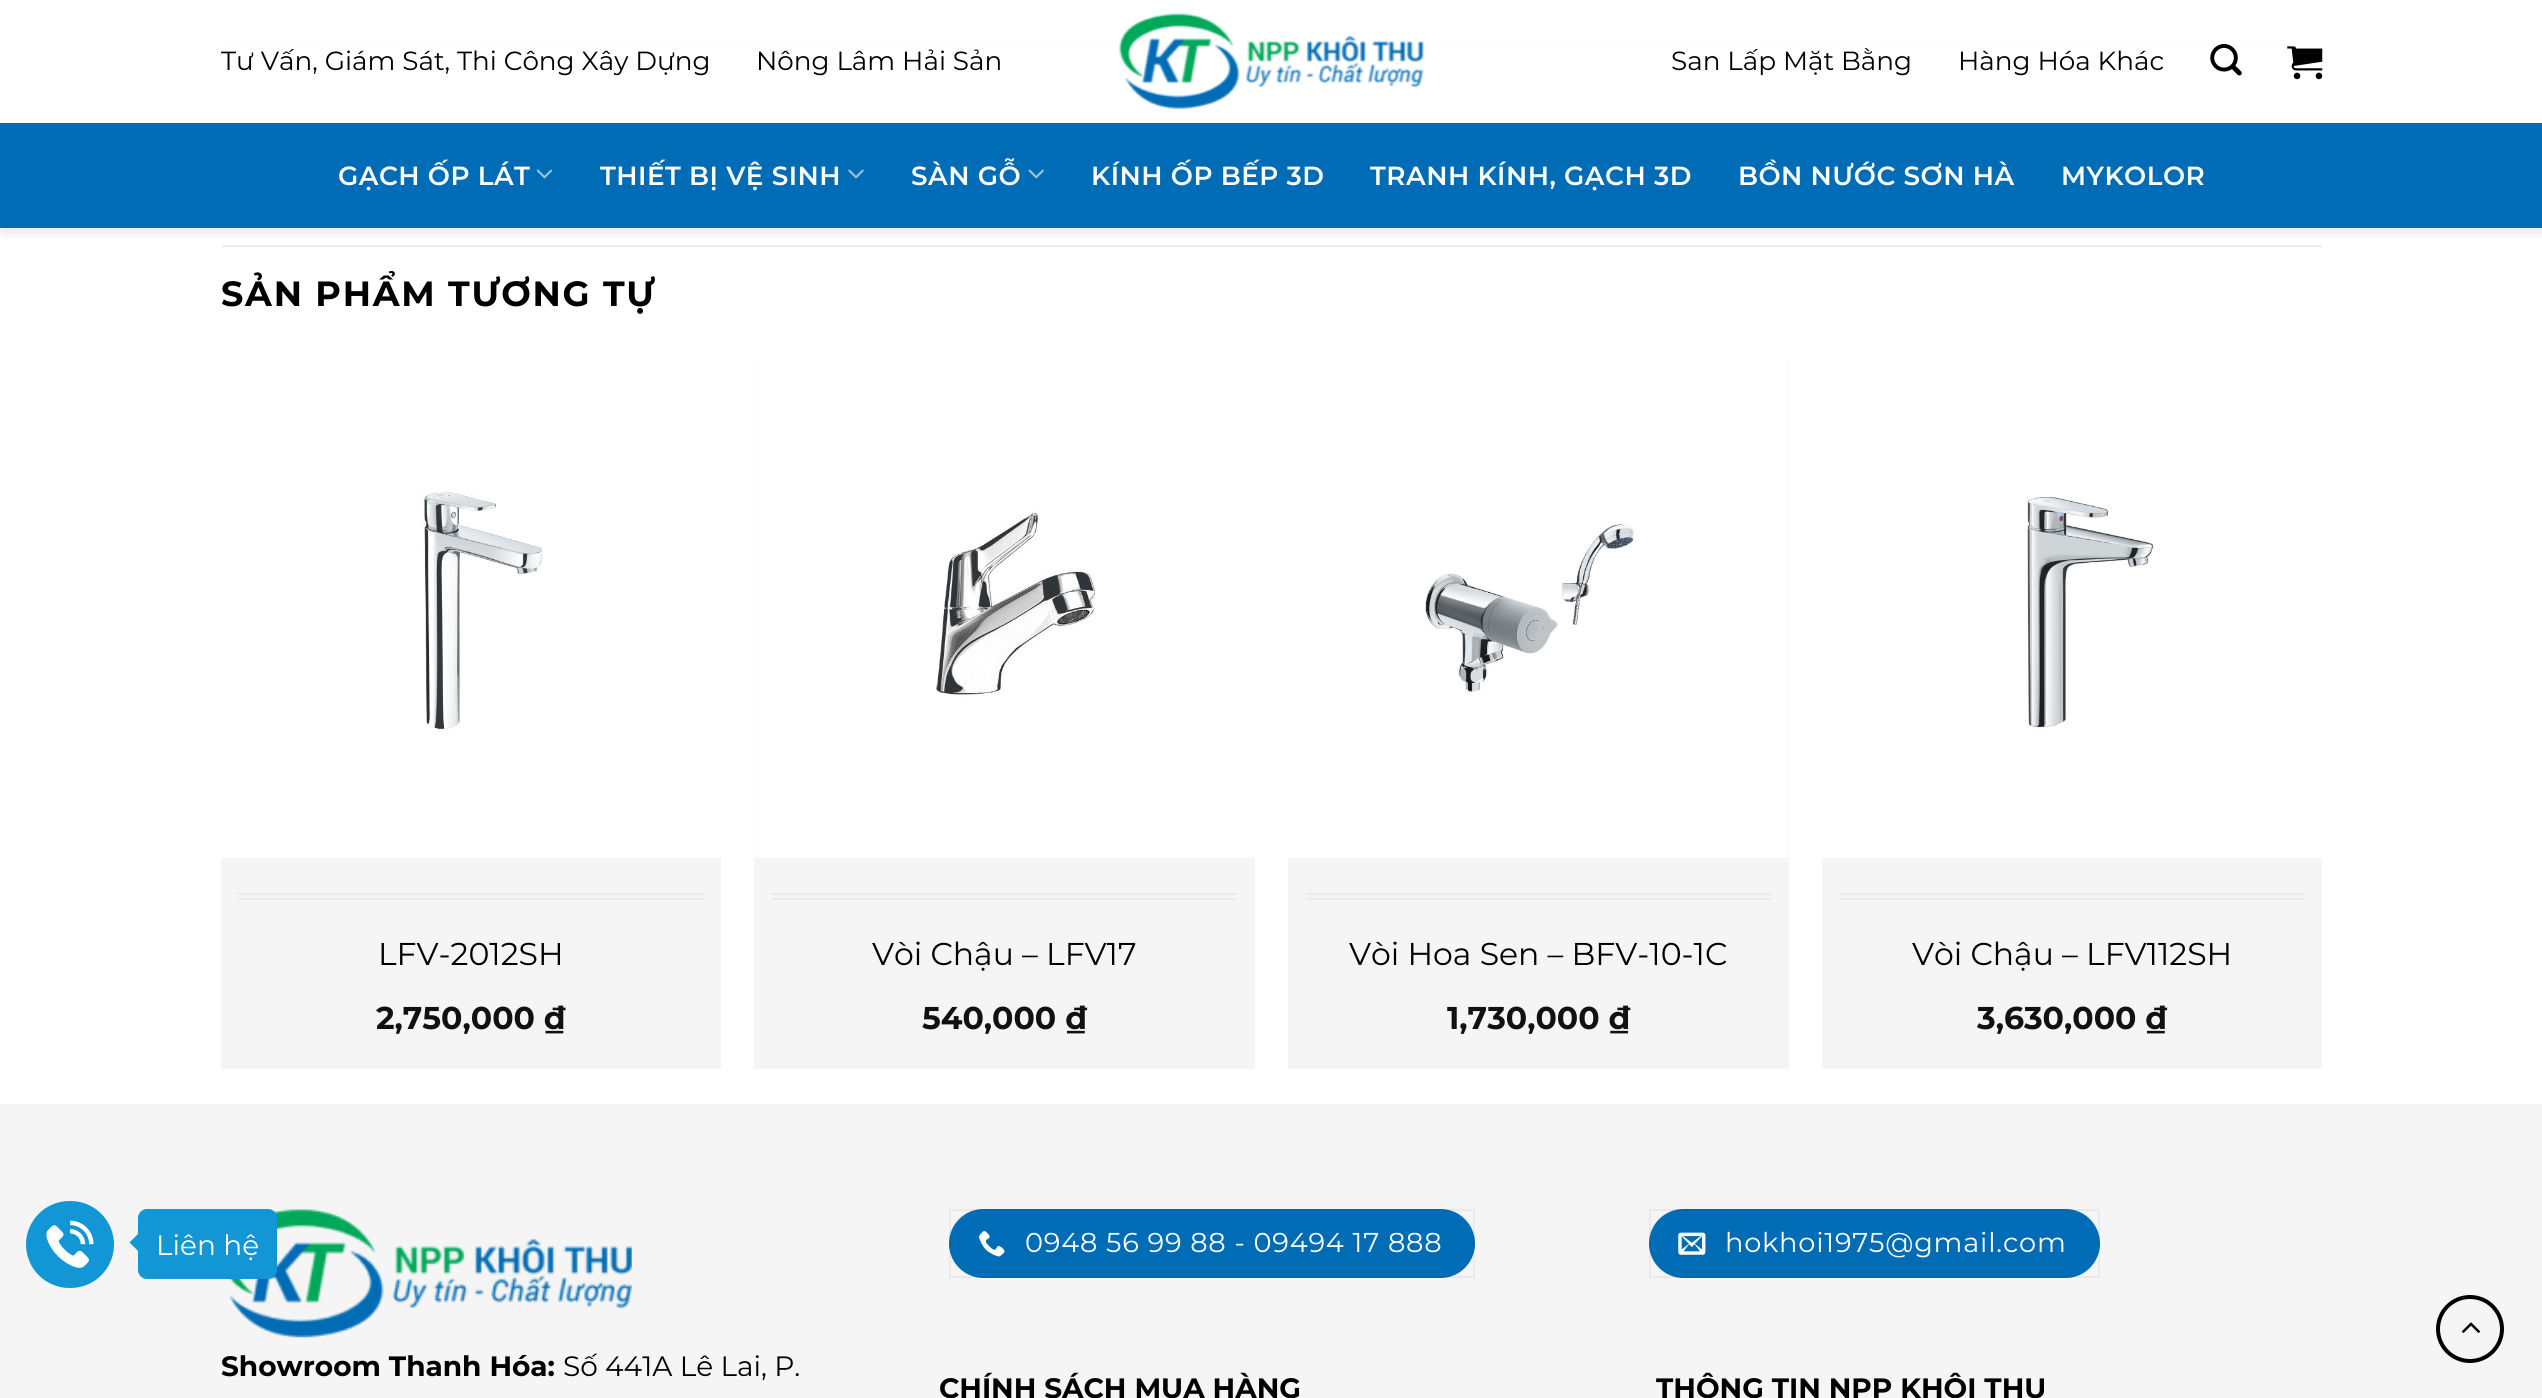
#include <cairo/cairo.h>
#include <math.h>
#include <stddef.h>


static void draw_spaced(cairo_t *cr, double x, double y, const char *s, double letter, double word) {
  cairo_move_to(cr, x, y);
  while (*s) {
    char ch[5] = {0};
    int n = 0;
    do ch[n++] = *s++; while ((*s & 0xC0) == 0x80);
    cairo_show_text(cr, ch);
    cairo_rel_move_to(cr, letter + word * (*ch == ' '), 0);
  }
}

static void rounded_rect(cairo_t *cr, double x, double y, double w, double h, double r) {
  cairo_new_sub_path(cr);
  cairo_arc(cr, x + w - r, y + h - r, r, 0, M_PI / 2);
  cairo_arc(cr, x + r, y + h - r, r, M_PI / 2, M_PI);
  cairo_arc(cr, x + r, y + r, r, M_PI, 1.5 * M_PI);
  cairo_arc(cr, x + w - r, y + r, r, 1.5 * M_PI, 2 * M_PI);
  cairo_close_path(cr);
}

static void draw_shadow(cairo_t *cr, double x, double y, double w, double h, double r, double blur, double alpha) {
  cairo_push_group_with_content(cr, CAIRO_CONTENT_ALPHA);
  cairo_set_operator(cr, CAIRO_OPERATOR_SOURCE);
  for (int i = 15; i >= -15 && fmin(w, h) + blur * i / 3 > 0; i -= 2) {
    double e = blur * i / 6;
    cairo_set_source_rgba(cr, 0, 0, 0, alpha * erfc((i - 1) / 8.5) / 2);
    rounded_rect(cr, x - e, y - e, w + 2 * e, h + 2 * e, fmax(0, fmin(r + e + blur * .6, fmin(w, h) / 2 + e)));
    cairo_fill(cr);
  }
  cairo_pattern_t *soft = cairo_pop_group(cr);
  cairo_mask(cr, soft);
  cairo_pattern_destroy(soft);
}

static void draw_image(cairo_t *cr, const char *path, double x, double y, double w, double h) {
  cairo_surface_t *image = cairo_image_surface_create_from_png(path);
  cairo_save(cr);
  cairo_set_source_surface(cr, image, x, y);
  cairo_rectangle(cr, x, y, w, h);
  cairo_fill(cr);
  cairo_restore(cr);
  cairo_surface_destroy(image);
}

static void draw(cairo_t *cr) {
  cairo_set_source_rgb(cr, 1, 1, 1);
  cairo_paint(cr);
  cairo_set_source_rgb(cr, 245 / 255.0, 245 / 255.0, 245 / 255.0);
  cairo_rectangle(cr, 0, 1104, 2542, 294);
  cairo_fill(cr);
  cairo_set_source_rgb(cr, 18 / 255.0, 150 / 255.0, 213 / 255.0);
  rounded_rect(cr, 26, 1201, 88, 87, 43.5);
  cairo_fill(cr);
  draw_image(cr, "images/1.png", 46, 1220, 48, 48);
  draw_image(cr, "images/12.png", 229, 1209, 403, 129);
  rounded_rect(cr, 138, 1209, 139, 70, 9);
  cairo_fill(cr);
  cairo_new_path(cr);
  cairo_move_to(cr, 140, 1232);
  cairo_line_to(cr, 140, 1253);
  cairo_line_to(cr, 129.5, 1242.5);
  cairo_close_path(cr);
  cairo_fill(cr);
  cairo_set_source_rgb(cr, 236 / 255.0, 236 / 255.0, 236 / 255.0);
  cairo_rectangle(cr, 222, 44, 2100, 2);
  cairo_fill(cr);
  cairo_rectangle(cr, 222, 103, 2100, 2);
  cairo_fill(cr);
  cairo_rectangle(cr, 222, 245, 2100, 2);
  cairo_fill(cr);
  cairo_save(cr);
  cairo_rectangle(cr, 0, 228, 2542, 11);
  cairo_clip(cr);
  cairo_set_source_rgb(cr, 0, 0, 0);
  draw_shadow(cr, 2, 2, 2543, 227, 0, 9, 0.15);
  cairo_restore(cr);
  cairo_set_source_rgba(cr, 1, 1, 1, 0.9);
  cairo_rectangle(cr, 222, 44, 2100, 61);
  cairo_fill(cr);
  draw_image(cr, "images/2.png", 1119, 13, 305, 96);
  draw_image(cr, "images/3.png", 2210, 44, 32, 32);
  draw_image(cr, "images/4.png", 2287, 46, 36, 34);
  cairo_set_source_rgb(cr, 0, 108 / 255.0, 181 / 255.0);
  cairo_rectangle(cr, 0, 123, 2542, 105);
  cairo_fill(cr);
  draw_image(cr, "images/5.png", 536, 169, 17, 10);
  draw_image(cr, "images/6.png", 848, 169, 16, 10);
  draw_image(cr, "images/7.png", 1028, 169, 16, 10);
  cairo_set_source_rgb(cr, 245 / 255.0, 245 / 255.0, 245 / 255.0);
  cairo_rectangle(cr, 221, 857, 500, 212);
  cairo_fill(cr);
  draw_image(cr, "images/8.png", 221, 359, 500, 499);
  cairo_set_source_rgb(cr, 234 / 255.0, 234 / 255.0, 234 / 255.0);
  cairo_rectangle(cr, 238, 893, 466, 2);
  cairo_fill(cr);
  cairo_rectangle(cr, 238, 898, 466, 2);
  cairo_fill(cr);
  cairo_set_source_rgb(cr, 245 / 255.0, 245 / 255.0, 245 / 255.0);
  cairo_rectangle(cr, 754, 359, 501, 710);
  cairo_fill(cr);
  draw_image(cr, "images/9.png", 754, 359, 501, 499);
  cairo_set_source_rgb(cr, 234 / 255.0, 234 / 255.0, 234 / 255.0);
  cairo_rectangle(cr, 772, 893, 465, 2);
  cairo_fill(cr);
  cairo_rectangle(cr, 772, 898, 465, 2);
  cairo_fill(cr);
  cairo_set_source_rgb(cr, 245 / 255.0, 245 / 255.0, 245 / 255.0);
  cairo_rectangle(cr, 1288, 359, 501, 710);
  cairo_fill(cr);
  draw_image(cr, "images/10.png", 1288, 359, 500, 499);
  cairo_set_source_rgb(cr, 234 / 255.0, 234 / 255.0, 234 / 255.0);
  cairo_rectangle(cr, 1306, 893, 465, 2);
  cairo_fill(cr);
  cairo_rectangle(cr, 1306, 898, 465, 2);
  cairo_fill(cr);
  cairo_set_source_rgb(cr, 245 / 255.0, 245 / 255.0, 245 / 255.0);
  cairo_rectangle(cr, 1822, 857, 500, 212);
  cairo_fill(cr);
  draw_image(cr, "images/11.png", 1822, 359, 500, 499);
  cairo_set_source_rgb(cr, 234 / 255.0, 234 / 255.0, 234 / 255.0);
  cairo_rectangle(cr, 1839, 893, 466, 2);
  cairo_fill(cr);
  cairo_rectangle(cr, 1839, 898, 466, 2);
  cairo_fill(cr);
  cairo_set_source_rgb(cr, 0, 108 / 255.0, 181 / 255.0);
  rounded_rect(cr, 949, 1209, 526, 69, 34.5);
  cairo_fill(cr);
  cairo_rectangle(cr, 950, 1210, 524, 67);
  cairo_set_source_rgba(cr, 0, 0, 0, 0.05);
  cairo_stroke(cr);
  draw_image(cr, "images/13.png", 979, 1231, 26, 26);
  cairo_set_source_rgb(cr, 0, 108 / 255.0, 181 / 255.0);
  rounded_rect(cr, 1649, 1209, 451, 69, 34.5);
  cairo_fill(cr);
  cairo_rectangle(cr, 1650, 1210, 449, 67);
  cairo_set_source_rgba(cr, 0, 0, 0, 0.05);
  cairo_stroke(cr);
  draw_image(cr, "images/14.png", 1678, 1232, 28, 23);
  cairo_arc(cr, 2470, 1329, 32, 0, 2 * M_PI);
  cairo_set_source_rgb(cr, 0, 0, 0);
  cairo_set_line_width(cr, 4);
  cairo_stroke(cr);
  draw_image(cr, "images/15.png", 2461, 1322, 19, 11);
  cairo_select_font_face(cr, "Montserrat", CAIRO_FONT_SLANT_NORMAL, CAIRO_FONT_WEIGHT_NORMAL);
  cairo_set_font_size(cr, 28);
  cairo_set_source_rgb(cr, 1, 1, 1);
  cairo_move_to(cr, 156, 1255);
  cairo_show_text(cr, "Liên hệ");
  cairo_set_font_size(cr, 26.25);
  cairo_set_source_rgb(cr, 0, 0, 0);
  cairo_move_to(cr, 221, 70);
  cairo_show_text(cr, "Tư Vấn, Giám Sát, Thi Công Xây Dựng");
  cairo_move_to(cr, 756, 70);
  cairo_show_text(cr, "Nông Lâm Hải Sản");
  cairo_move_to(cr, 1671, 70);
  cairo_show_text(cr, "San Lấp Mặt Bằng");
  cairo_move_to(cr, 1958, 70);
  cairo_show_text(cr, "Hàng Hóa Khác");
  cairo_select_font_face(cr, "Montserrat SemiBold", CAIRO_FONT_SLANT_NORMAL, CAIRO_FONT_WEIGHT_NORMAL);
  cairo_set_source_rgb(cr, 1, 1, 1);
  draw_spaced(cr, 338, 185, "GẠCH ỐP LÁT", 0.5, 0);
  draw_spaced(cr, 600, 185, "THIẾT BỊ VỆ SINH", 0.5, 0);
  draw_spaced(cr, 911, 185, "SÀN GỖ", 0.5, 0);
  draw_spaced(cr, 1091, 185, "KÍNH ỐP BẾP 3D", 0.5, 0);
  draw_spaced(cr, 1370, 185, "TRANH KÍNH, GẠCH 3D", 0.5, 0);
  draw_spaced(cr, 1738, 185, "BỒN NƯỚC SƠN HÀ", 0.5, 0);
  draw_spaced(cr, 2061, 185, "MYKOLOR", 0.5, 0);
  cairo_select_font_face(cr, "Montserrat", CAIRO_FONT_SLANT_NORMAL, CAIRO_FONT_WEIGHT_BOLD);
  cairo_set_font_size(cr, 35);
  cairo_set_source_rgb(cr, 0, 0, 0);
  draw_spaced(cr, 221, 306, "SẢN PHẨM TƯƠNG TỰ", 1.75, 0);
  cairo_select_font_face(cr, "Montserrat", CAIRO_FONT_SLANT_NORMAL, CAIRO_FONT_WEIGHT_NORMAL);
  cairo_set_font_size(cr, 31.5);
  cairo_move_to(cr, 378, 965);
  cairo_show_text(cr, "LFV-2012SH");
  cairo_select_font_face(cr, "Montserrat", CAIRO_FONT_SLANT_NORMAL, CAIRO_FONT_WEIGHT_BOLD);
  cairo_set_source_rgb(cr, 17 / 255.0, 17 / 255.0, 17 / 255.0);
  cairo_move_to(cr, 376, 1029);
  cairo_show_text(cr, "2,750,000 ₫");
  cairo_select_font_face(cr, "Montserrat", CAIRO_FONT_SLANT_NORMAL, CAIRO_FONT_WEIGHT_NORMAL);
  cairo_set_source_rgb(cr, 0, 0, 0);
  cairo_move_to(cr, 872, 965);
  cairo_show_text(cr, "Vòi Chậu – LFV17");
  cairo_select_font_face(cr, "Montserrat", CAIRO_FONT_SLANT_NORMAL, CAIRO_FONT_WEIGHT_BOLD);
  cairo_set_source_rgb(cr, 17 / 255.0, 17 / 255.0, 17 / 255.0);
  cairo_move_to(cr, 922, 1029);
  cairo_show_text(cr, "540,000 ₫");
  cairo_select_font_face(cr, "Montserrat", CAIRO_FONT_SLANT_NORMAL, CAIRO_FONT_WEIGHT_NORMAL);
  cairo_set_source_rgb(cr, 0, 0, 0);
  cairo_move_to(cr, 1349, 965);
  cairo_show_text(cr, "Vòi Hoa Sen – BFV-10-1C");
  cairo_select_font_face(cr, "Montserrat", CAIRO_FONT_SLANT_NORMAL, CAIRO_FONT_WEIGHT_BOLD);
  cairo_set_source_rgb(cr, 17 / 255.0, 17 / 255.0, 17 / 255.0);
  cairo_move_to(cr, 1447, 1029);
  cairo_show_text(cr, "1,730,000 ₫");
  cairo_select_font_face(cr, "Montserrat", CAIRO_FONT_SLANT_NORMAL, CAIRO_FONT_WEIGHT_NORMAL);
  cairo_set_source_rgb(cr, 0, 0, 0);
  cairo_move_to(cr, 1912, 965);
  cairo_show_text(cr, "Vòi Chậu – LFV112SH");
  cairo_select_font_face(cr, "Montserrat", CAIRO_FONT_SLANT_NORMAL, CAIRO_FONT_WEIGHT_BOLD);
  cairo_set_source_rgb(cr, 17 / 255.0, 17 / 255.0, 17 / 255.0);
  cairo_move_to(cr, 1977, 1029);
  cairo_show_text(cr, "3,630,000 ₫");
  cairo_select_font_face(cr, "Montserrat", CAIRO_FONT_SLANT_NORMAL, CAIRO_FONT_WEIGHT_NORMAL);
  cairo_set_font_size(cr, 27.2);
  cairo_set_source_rgb(cr, 1, 1, 1);
  draw_spaced(cr, 1025, 1252, "0948 56 99 88 - 09494 17 888", 0.8, 0);
  draw_spaced(cr, 1725, 1252, "hokhoi1975@gmail.com", 0.8, 0);
  cairo_select_font_face(cr, "Montserrat", CAIRO_FONT_SLANT_NORMAL, CAIRO_FONT_WEIGHT_BOLD);
  cairo_set_font_size(cr, 28);
  cairo_set_source_rgb(cr, 0, 0, 0);
  cairo_move_to(cr, 221, 1376);
  cairo_show_text(cr, "Showroom Thanh Hóa:");
  cairo_select_font_face(cr, "Montserrat", CAIRO_FONT_SLANT_NORMAL, CAIRO_FONT_WEIGHT_NORMAL);
  cairo_move_to(cr, 563, 1376);
  cairo_show_text(cr, "Số 441A Lê Lai, P.");
  cairo_select_font_face(cr, "Montserrat", CAIRO_FONT_SLANT_NORMAL, CAIRO_FONT_WEIGHT_BOLD);
  cairo_move_to(cr, 939, 1398);
  cairo_show_text(cr, "CHÍNH SÁCH MUA HÀNG");
  cairo_move_to(cr, 1656, 1398);
  cairo_show_text(cr, "THÔNG TIN NPP KHÔI THU");
}

int main(void) {
  cairo_surface_t *surface = cairo_image_surface_create(CAIRO_FORMAT_RGB24, 2542, 1398);
  cairo_t *cr = cairo_create(surface);
  cairo_font_options_t *options = cairo_font_options_create();
  cairo_font_options_set_hint_metrics(options, CAIRO_HINT_METRICS_OFF);
  cairo_font_options_set_hint_style(options, CAIRO_HINT_STYLE_NONE);
  cairo_set_font_options(cr, options);
  cairo_set_miter_limit(cr, 4);
  draw(cr);
  cairo_surface_write_to_png(surface, "out.png");
  cairo_font_options_destroy(options);
  cairo_destroy(cr);
  cairo_surface_destroy(surface);
  return 0;
}
